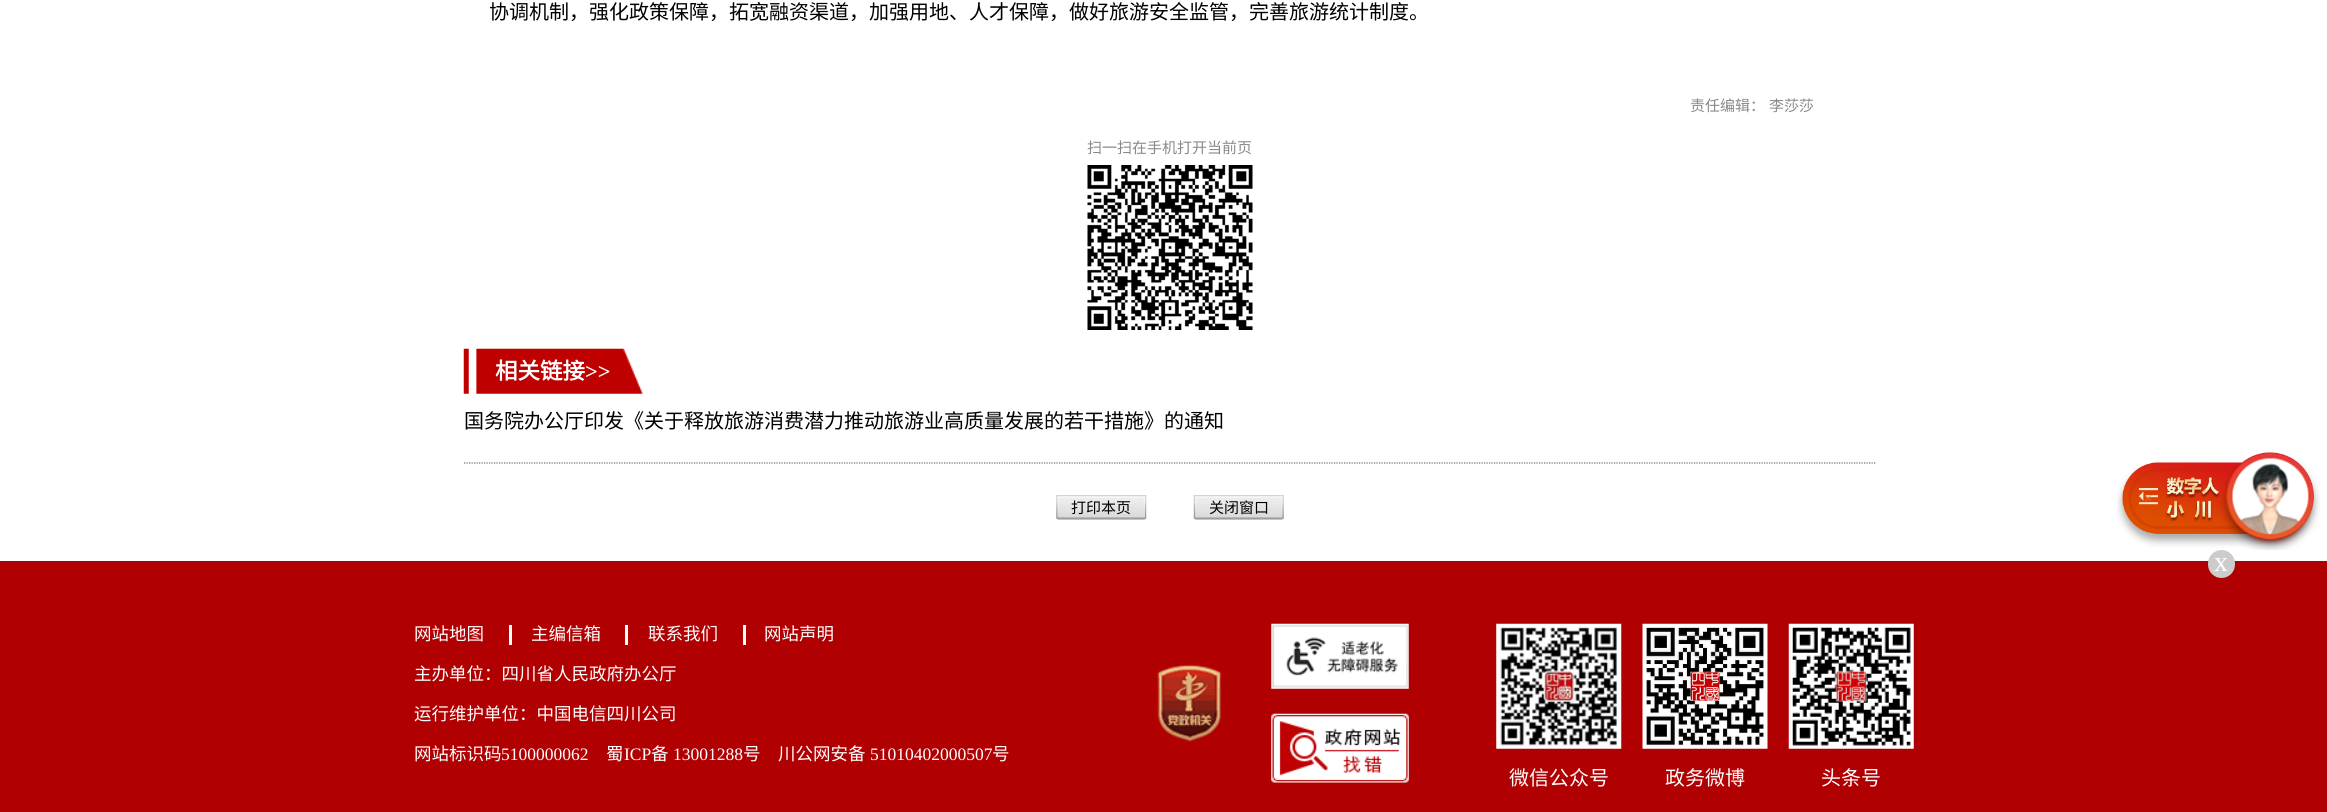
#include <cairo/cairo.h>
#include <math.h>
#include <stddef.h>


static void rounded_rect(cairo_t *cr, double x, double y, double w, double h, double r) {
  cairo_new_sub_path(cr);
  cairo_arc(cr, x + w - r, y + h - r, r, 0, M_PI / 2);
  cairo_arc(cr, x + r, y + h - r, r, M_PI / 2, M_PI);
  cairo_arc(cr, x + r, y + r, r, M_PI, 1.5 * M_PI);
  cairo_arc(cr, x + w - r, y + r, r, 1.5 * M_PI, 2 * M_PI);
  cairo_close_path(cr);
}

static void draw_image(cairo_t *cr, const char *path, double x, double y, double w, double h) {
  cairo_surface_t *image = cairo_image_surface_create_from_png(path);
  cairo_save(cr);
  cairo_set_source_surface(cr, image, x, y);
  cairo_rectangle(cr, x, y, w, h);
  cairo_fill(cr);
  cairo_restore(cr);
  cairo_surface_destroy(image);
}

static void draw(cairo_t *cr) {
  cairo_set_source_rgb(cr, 1, 1, 1);
  cairo_paint(cr);
  draw_image(cr, "images/1.png", 1087, 165, 166, 165);
  cairo_new_path(cr);
  cairo_move_to(cr, 464, 463);
  cairo_line_to(cr, 1876, 463);
  cairo_set_source_rgb(cr, 110 / 255.0, 110 / 255.0, 110 / 255.0);
  cairo_set_line_width(cr, 1.2);
  cairo_set_dash(cr, (double[]){1.25, 1.25}, 2, 0);
  cairo_stroke(cr);
  draw_image(cr, "images/2.png", 463, 348, 180, 46);
  draw_image(cr, "images/3.png", 1056, 495, 91, 25);
  draw_image(cr, "images/4.png", 1193, 495, 91, 25);
  draw_image(cr, "images/5.png", 2117, 452, 203, 98);
  cairo_set_source_rgb(cr, 177 / 255.0, 0, 1 / 255.0);
  cairo_rectangle(cr, 0, 561, 2327, 251);
  cairo_fill(cr);
  cairo_set_source_rgb(cr, 204 / 255.0, 204 / 255.0, 204 / 255.0);
  rounded_rect(cr, 2208, 550, 27, 28, 13.5);
  cairo_fill(cr);
  cairo_set_source_rgb(cr, 1, 1, 1);
  cairo_rectangle(cr, 509, 625, 3, 20);
  cairo_fill(cr);
  cairo_rectangle(cr, 625, 625, 3, 20);
  cairo_fill(cr);
  cairo_rectangle(cr, 743, 625, 3, 20);
  cairo_fill(cr);
  draw_image(cr, "images/6.png", 1157, 664, 65, 78);
  draw_image(cr, "images/7.png", 1271, 623, 138, 66);
  draw_image(cr, "images/8.png", 1271, 713, 138, 70);
  draw_image(cr, "images/9.png", 1496, 623, 126, 126);
  draw_image(cr, "images/10.png", 1642, 623, 126, 126);
  draw_image(cr, "images/11.png", 1788, 623, 126, 126);
  cairo_select_font_face(cr, "Noto Sans CJK SC", CAIRO_FONT_SLANT_NORMAL, CAIRO_FONT_WEIGHT_NORMAL);
  cairo_set_font_size(cr, 20);
  cairo_set_source_rgb(cr, 0, 0, 0);
  cairo_move_to(cr, 489, 19);
  cairo_show_text(cr, "协调机制，强化政策保障，拓宽融资渠道，加强用地、人才保障，做好旅游安全监管，完善旅游统计制度。");
  cairo_set_font_size(cr, 15);
  cairo_set_source_rgb(cr, 137 / 255.0, 137 / 255.0, 137 / 255.0);
  cairo_move_to(cr, 1690, 111);
  cairo_show_text(cr, "责任编辑：");
  cairo_move_to(cr, 1769, 111);
  cairo_show_text(cr, "李莎莎");
  cairo_move_to(cr, 1087, 153);
  cairo_show_text(cr, "扫一扫在手机打开当前页");
  cairo_select_font_face(cr, "Noto Sans CJK SC", CAIRO_FONT_SLANT_NORMAL, CAIRO_FONT_WEIGHT_BOLD);
  cairo_set_font_size(cr, 22.5);
  cairo_set_source_rgb(cr, 1, 1, 1);
  cairo_move_to(cr, 495, 379);
  cairo_show_text(cr, "相关链接");
  cairo_select_font_face(cr, "Liberation Serif", CAIRO_FONT_SLANT_NORMAL, CAIRO_FONT_WEIGHT_BOLD);
  cairo_move_to(cr, 585, 379);
  cairo_show_text(cr, ">>");
  cairo_select_font_face(cr, "Noto Sans CJK SC", CAIRO_FONT_SLANT_NORMAL, CAIRO_FONT_WEIGHT_NORMAL);
  cairo_set_font_size(cr, 20);
  cairo_set_source_rgb(cr, 0, 0, 0);
  cairo_move_to(cr, 464, 428);
  cairo_show_text(cr, "国务院办公厅印发《关于释放旅游消费潜力推动旅游业高质量发展的若干措施》的通知");
  cairo_set_font_size(cr, 15);
  cairo_move_to(cr, 1071, 513);
  cairo_show_text(cr, "打印本页");
  cairo_move_to(cr, 1209, 513);
  cairo_show_text(cr, "关闭窗口");
  cairo_select_font_face(cr, "Liberation Serif", CAIRO_FONT_SLANT_NORMAL, CAIRO_FONT_WEIGHT_NORMAL);
  cairo_set_source_rgb(cr, 231 / 255.0, 118 / 255.0, 66 / 255.0);
  cairo_move_to(cr, 2144, 503);
  cairo_show_text(cr, "×");
  cairo_set_font_size(cr, 28);
  cairo_set_source_rgb(cr, 1, 1, 1);
  cairo_move_to(cr, 2214, 571);
  cairo_show_text(cr, "x");
  cairo_select_font_face(cr, "Noto Sans CJK SC", CAIRO_FONT_SLANT_NORMAL, CAIRO_FONT_WEIGHT_NORMAL);
  cairo_set_font_size(cr, 17.5);
  cairo_move_to(cr, 414, 640);
  cairo_show_text(cr, "网站地图");
  cairo_move_to(cr, 531, 640);
  cairo_show_text(cr, "主编信箱");
  cairo_move_to(cr, 648, 640);
  cairo_show_text(cr, "联系我们");
  cairo_move_to(cr, 764, 640);
  cairo_show_text(cr, "网站声明");
  cairo_move_to(cr, 414, 680);
  cairo_show_text(cr, "主办单位：四川省人民政府办公厅");
  cairo_move_to(cr, 414, 720);
  cairo_show_text(cr, "运行维护单位：中国电信四川公司");
  cairo_move_to(cr, 414, 760);
  cairo_show_text(cr, "网站标识码");
  cairo_select_font_face(cr, "Liberation Serif", CAIRO_FONT_SLANT_NORMAL, CAIRO_FONT_WEIGHT_NORMAL);
  cairo_move_to(cr, 501, 760);
  cairo_show_text(cr, "5100000062");
  cairo_select_font_face(cr, "Noto Sans CJK SC", CAIRO_FONT_SLANT_NORMAL, CAIRO_FONT_WEIGHT_NORMAL);
  cairo_move_to(cr, 606, 760);
  cairo_show_text(cr, "蜀");
  cairo_select_font_face(cr, "Liberation Serif", CAIRO_FONT_SLANT_NORMAL, CAIRO_FONT_WEIGHT_NORMAL);
  cairo_move_to(cr, 624, 760);
  cairo_show_text(cr, "ICP");
  cairo_select_font_face(cr, "Noto Sans CJK SC", CAIRO_FONT_SLANT_NORMAL, CAIRO_FONT_WEIGHT_NORMAL);
  cairo_move_to(cr, 651, 760);
  cairo_show_text(cr, "备");
  cairo_select_font_face(cr, "Liberation Serif", CAIRO_FONT_SLANT_NORMAL, CAIRO_FONT_WEIGHT_NORMAL);
  cairo_move_to(cr, 673, 760);
  cairo_show_text(cr, "13001288");
  cairo_select_font_face(cr, "Noto Sans CJK SC", CAIRO_FONT_SLANT_NORMAL, CAIRO_FONT_WEIGHT_NORMAL);
  cairo_move_to(cr, 743, 760);
  cairo_show_text(cr, "号");
  cairo_move_to(cr, 778, 760);
  cairo_show_text(cr, "川公网安备");
  cairo_select_font_face(cr, "Liberation Serif", CAIRO_FONT_SLANT_NORMAL, CAIRO_FONT_WEIGHT_NORMAL);
  cairo_move_to(cr, 870, 760);
  cairo_show_text(cr, "51010402000507");
  cairo_select_font_face(cr, "Noto Sans CJK SC", CAIRO_FONT_SLANT_NORMAL, CAIRO_FONT_WEIGHT_NORMAL);
  cairo_move_to(cr, 992, 760);
  cairo_show_text(cr, "号");
  cairo_set_font_size(cr, 20);
  cairo_move_to(cr, 1509, 785);
  cairo_show_text(cr, "微信公众号");
  cairo_move_to(cr, 1665, 785);
  cairo_show_text(cr, "政务微博");
  cairo_move_to(cr, 1821, 785);
  cairo_show_text(cr, "头条号");
}

int main(void) {
  cairo_surface_t *surface = cairo_image_surface_create(CAIRO_FORMAT_RGB24, 2327, 812);
  cairo_t *cr = cairo_create(surface);
  cairo_font_options_t *options = cairo_font_options_create();
  cairo_font_options_set_hint_metrics(options, CAIRO_HINT_METRICS_OFF);
  cairo_font_options_set_hint_style(options, CAIRO_HINT_STYLE_NONE);
  cairo_set_font_options(cr, options);
  cairo_set_miter_limit(cr, 4);
  draw(cr);
  cairo_surface_write_to_png(surface, "out.png");
  cairo_font_options_destroy(options);
  cairo_destroy(cr);
  cairo_surface_destroy(surface);
  return 0;
}
